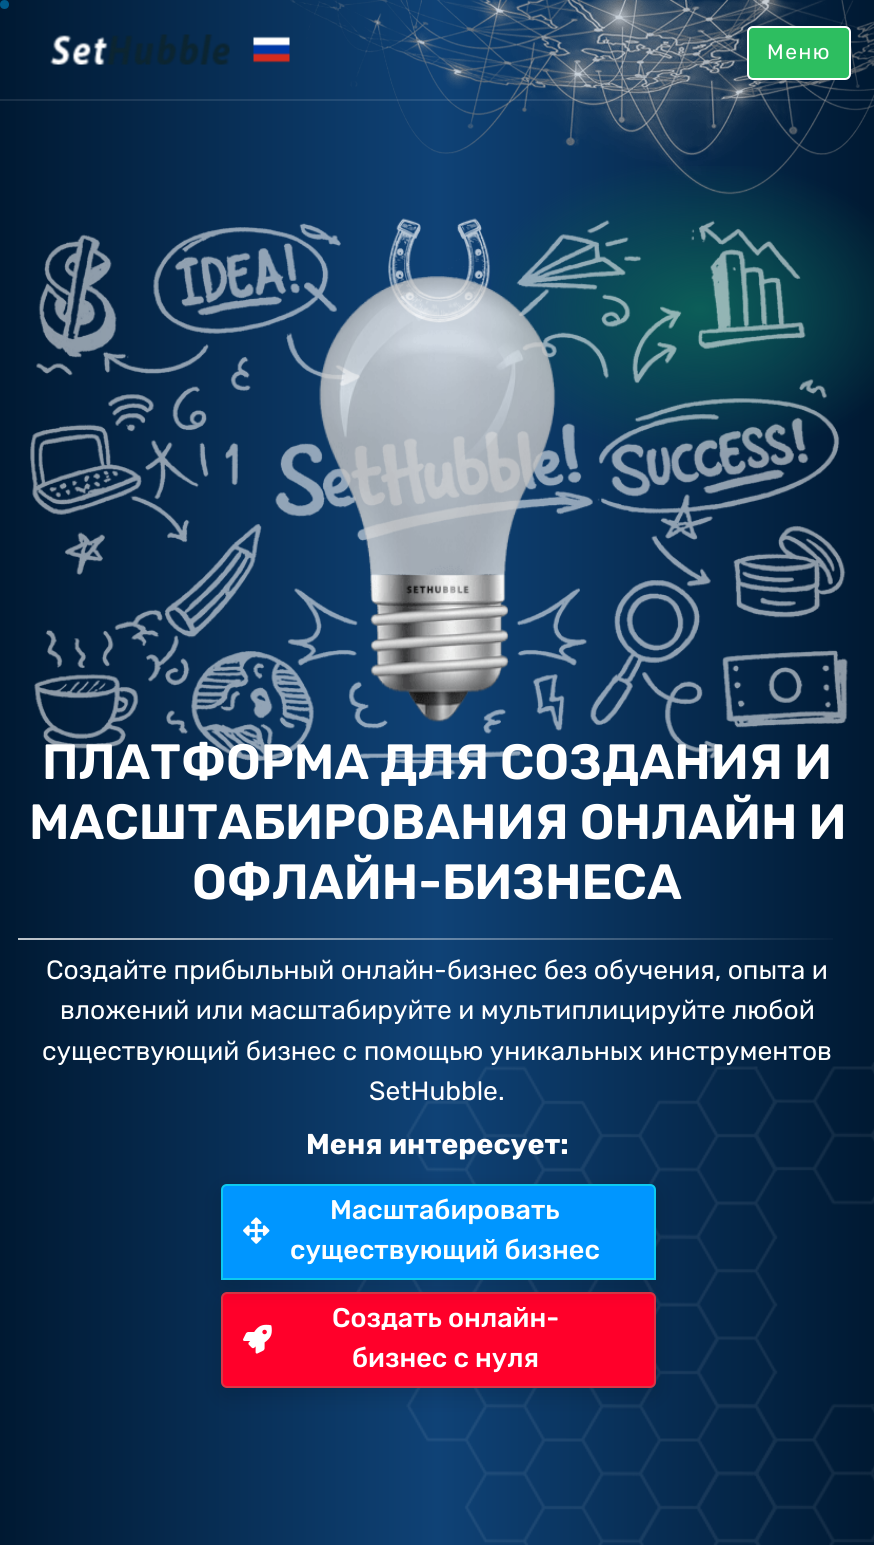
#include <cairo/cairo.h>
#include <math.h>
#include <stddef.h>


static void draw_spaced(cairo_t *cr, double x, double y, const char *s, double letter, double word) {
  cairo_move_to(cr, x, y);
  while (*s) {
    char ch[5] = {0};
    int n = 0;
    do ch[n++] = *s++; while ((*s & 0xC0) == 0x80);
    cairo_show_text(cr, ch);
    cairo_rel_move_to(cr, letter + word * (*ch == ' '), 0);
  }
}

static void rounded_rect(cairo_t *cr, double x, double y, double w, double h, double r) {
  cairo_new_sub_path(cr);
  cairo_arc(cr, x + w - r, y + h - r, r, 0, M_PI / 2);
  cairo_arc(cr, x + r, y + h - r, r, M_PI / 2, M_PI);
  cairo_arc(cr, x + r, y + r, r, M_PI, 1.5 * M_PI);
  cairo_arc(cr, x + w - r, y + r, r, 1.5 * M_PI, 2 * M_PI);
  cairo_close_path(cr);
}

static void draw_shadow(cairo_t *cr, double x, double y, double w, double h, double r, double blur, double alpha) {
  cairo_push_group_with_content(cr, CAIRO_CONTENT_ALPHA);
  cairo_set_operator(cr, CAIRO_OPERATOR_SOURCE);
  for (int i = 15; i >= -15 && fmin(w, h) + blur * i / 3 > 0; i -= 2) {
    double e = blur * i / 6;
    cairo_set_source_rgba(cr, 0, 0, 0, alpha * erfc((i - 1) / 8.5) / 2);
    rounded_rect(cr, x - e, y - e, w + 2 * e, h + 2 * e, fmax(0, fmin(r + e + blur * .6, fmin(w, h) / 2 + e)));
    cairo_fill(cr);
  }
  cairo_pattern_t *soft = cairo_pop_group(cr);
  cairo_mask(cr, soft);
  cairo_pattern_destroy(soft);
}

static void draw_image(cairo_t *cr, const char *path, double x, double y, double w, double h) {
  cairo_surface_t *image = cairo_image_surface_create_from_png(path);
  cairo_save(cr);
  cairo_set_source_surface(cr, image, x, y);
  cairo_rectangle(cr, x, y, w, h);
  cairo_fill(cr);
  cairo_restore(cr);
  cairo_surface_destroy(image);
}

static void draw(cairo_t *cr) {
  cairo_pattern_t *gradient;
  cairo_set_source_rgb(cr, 1, 1, 1);
  cairo_paint(cr);
  gradient = cairo_pattern_create_linear(0, 773, 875, 773);
  cairo_pattern_add_color_stop_rgba(gradient, 0, 0, 25 / 255.0, 50 / 255.0, 1);
  cairo_pattern_add_color_stop_rgba(gradient, 0.5, 15 / 255.0, 66 / 255.0, 118 / 255.0, 1);
  cairo_pattern_add_color_stop_rgba(gradient, 1, 0, 25 / 255.0, 50 / 255.0, 1);
  cairo_set_source(cr, gradient);
  cairo_pattern_destroy(gradient);
  cairo_rectangle(cr, 0, 0, 874, 1545);
  cairo_fill(cr);
  gradient = cairo_pattern_create_radial(0, 0, 0, 0, 0, 1);
  cairo_pattern_set_matrix(gradient, &(cairo_matrix_t){1.0 / 900, 0, 0, 1.0 / 600, -1.0 * 700 / 900, -1.0 * 309 / 600});
  cairo_pattern_add_color_stop_rgba(gradient, 0, 12 / 255.0, 94 / 255.0, 88 / 255.0, 1);
  cairo_pattern_add_color_stop_rgba(gradient, 0.25, 12 / 255.0, 94 / 255.0, 88 / 255.0, 0);
  cairo_set_source(cr, gradient);
  cairo_pattern_destroy(gradient);
  cairo_rectangle(cr, 491, 166, 383, 286);
  cairo_fill(cr);
  draw_image(cr, "images/3.png", 290, 0, 584, 195);
  cairo_set_source_rgba(cr, 250 / 255.0, 250 / 255.0, 250 / 255.0, 0.1);
  cairo_rectangle(cr, 0, 99, 874, 2);
  cairo_fill(cr);
  draw_image(cr, "images/1.png", 50, 34, 180, 31);
  draw_image(cr, "images/2.png", 253, 36, 37, 27);
  cairo_set_source_rgb(cr, 45 / 255.0, 190 / 255.0, 96 / 255.0);
  rounded_rect(cr, 748, 27, 102, 52, 5);
  cairo_fill_preserve(cr);
  cairo_set_source_rgb(cr, 1, 1, 1);
  cairo_stroke(cr);
  cairo_set_source_rgb(cr, 0, 91 / 255.0, 140 / 255.0);
  cairo_arc(cr, 4.5, 4.5, 4.5, 0, 2 * M_PI);
  cairo_fill(cr);
  draw_image(cr, "images/4.png", 30, 218, 818, 559);
  draw_image(cr, "images/5.png", 319, 276, 237, 446);
  gradient = cairo_pattern_create_linear(18, 938, 857, 938);
  cairo_pattern_add_color_stop_rgba(gradient, 0, 1, 1, 1, 0.75);
  cairo_pattern_add_color_stop_rgba(gradient, 1, 1, 1, 1, 0);
  cairo_set_source(cr, gradient);
  cairo_pattern_destroy(gradient);
  cairo_rectangle(cr, 18, 938, 815, 2);
  cairo_fill(cr);
  draw_image(cr, "images/8.png", 356, 1062, 518, 483);
  cairo_set_source_rgb(cr, 0, 0, 0);
  draw_shadow(cr, 221, 1299, 435, 96, 6, 11, 0.15);
  cairo_set_source_rgb(cr, 1, 0, 42 / 255.0);
  rounded_rect(cr, 222, 1293, 433, 94, 5);
  cairo_fill_preserve(cr);
  cairo_set_source_rgb(cr, 220 / 255.0, 53 / 255.0, 69 / 255.0);
  cairo_stroke(cr);
  cairo_set_source_rgb(cr, 0, 0, 0);
  draw_shadow(cr, 221, 1191, 435, 96, 6, 11, 0.15);
  cairo_set_source_rgb(cr, 0, 150 / 255.0, 1);
  cairo_new_path(cr);
  cairo_move_to(cr, 227, 1185);
  cairo_line_to(cr, 650, 1185);
  cairo_curve_to(cr, 653, 1185, 655, 1187, 655, 1190);
  cairo_line_to(cr, 655, 1279);
  cairo_line_to(cr, 222, 1279);
  cairo_line_to(cr, 222, 1190);
  cairo_curve_to(cr, 222, 1187, 224, 1185, 227, 1185);
  cairo_close_path(cr);
  cairo_fill_preserve(cr);
  cairo_set_source_rgb(cr, 13 / 255.0, 202 / 255.0, 240 / 255.0);
  cairo_stroke(cr);
  draw_image(cr, "images/6.png", 243, 1217, 27, 27);
  draw_image(cr, "images/7.png", 243, 1324, 29, 30);
  cairo_select_font_face(cr, "Rubik", CAIRO_FONT_SLANT_NORMAL, CAIRO_FONT_WEIGHT_NORMAL);
  cairo_set_font_size(cr, 21);
  cairo_set_source_rgb(cr, 1, 1, 1);
  draw_spaced(cr, 767, 59, "Меню", 1.5, 0);
  cairo_select_font_face(cr, "Rubik SemiBold", CAIRO_FONT_SLANT_NORMAL, CAIRO_FONT_WEIGHT_NORMAL);
  cairo_set_font_size(cr, 49.5);
  cairo_move_to(cr, 42, 779);
  cairo_show_text(cr, "ПЛАТФОРМА ДЛЯ СОЗДАНИЯ И");
  cairo_move_to(cr, 29, 839);
  cairo_show_text(cr, "МАСШТАБИРОВАНИЯ ОНЛАЙН И");
  cairo_move_to(cr, 192, 899);
  cairo_show_text(cr, "ОФЛАЙН-БИЗНЕСА");
  cairo_select_font_face(cr, "Rubik", CAIRO_FONT_SLANT_NORMAL, CAIRO_FONT_WEIGHT_NORMAL);
  cairo_set_font_size(cr, 26.4);
  cairo_move_to(cr, 46, 979);
  cairo_show_text(cr, "Создайте прибыльный онлайн-бизнес без обучения, опыта и");
  cairo_move_to(cr, 60, 1019);
  cairo_show_text(cr, "вложений или масштабируйте и мультиплицируйте любой");
  cairo_move_to(cr, 42, 1060);
  cairo_show_text(cr, "существующий бизнес с помощью уникальных инструментов");
  cairo_move_to(cr, 369, 1100);
  cairo_show_text(cr, "SetHubble.");
  cairo_select_font_face(cr, "Rubik", CAIRO_FONT_SLANT_NORMAL, CAIRO_FONT_WEIGHT_BOLD);
  cairo_set_font_size(cr, 28.75);
  cairo_move_to(cr, 306, 1154);
  cairo_show_text(cr, "Меня интересует:");
  cairo_select_font_face(cr, "Rubik Medium", CAIRO_FONT_SLANT_NORMAL, CAIRO_FONT_WEIGHT_NORMAL);
  cairo_set_font_size(cr, 27);
  cairo_move_to(cr, 330, 1219);
  cairo_show_text(cr, "Масштабировать");
  cairo_move_to(cr, 290, 1259);
  cairo_show_text(cr, "существующий бизнес");
  cairo_move_to(cr, 332, 1327);
  cairo_show_text(cr, "Создать онлайн-");
  cairo_move_to(cr, 352, 1367);
  cairo_show_text(cr, "бизнес с нуля");
}

int main(void) {
  cairo_surface_t *surface = cairo_image_surface_create(CAIRO_FORMAT_RGB24, 874, 1545);
  cairo_t *cr = cairo_create(surface);
  cairo_font_options_t *options = cairo_font_options_create();
  cairo_font_options_set_hint_metrics(options, CAIRO_HINT_METRICS_OFF);
  cairo_font_options_set_hint_style(options, CAIRO_HINT_STYLE_NONE);
  cairo_set_font_options(cr, options);
  cairo_set_miter_limit(cr, 4);
  draw(cr);
  cairo_surface_write_to_png(surface, "out.png");
  cairo_font_options_destroy(options);
  cairo_destroy(cr);
  cairo_surface_destroy(surface);
  return 0;
}
